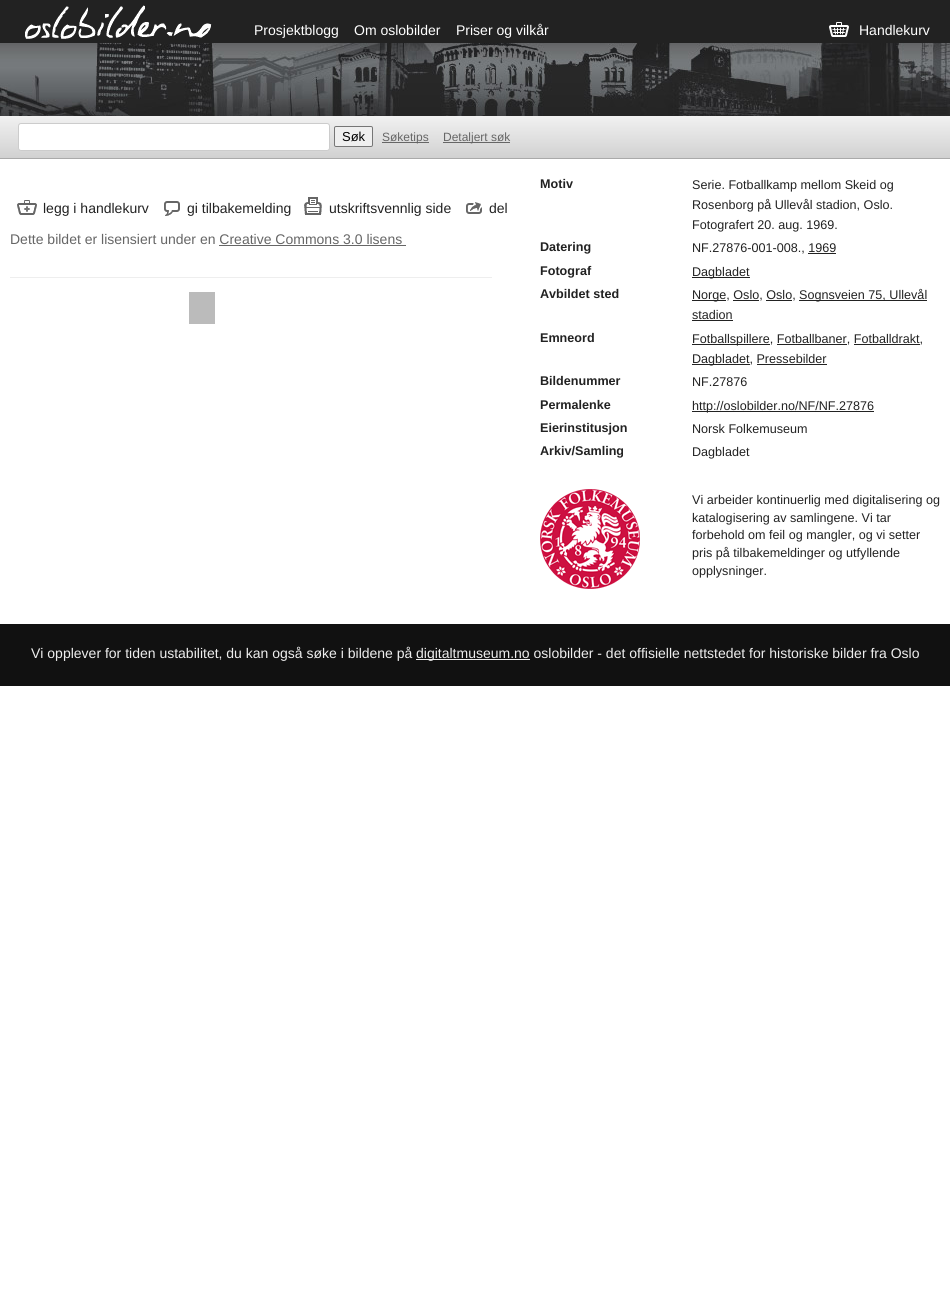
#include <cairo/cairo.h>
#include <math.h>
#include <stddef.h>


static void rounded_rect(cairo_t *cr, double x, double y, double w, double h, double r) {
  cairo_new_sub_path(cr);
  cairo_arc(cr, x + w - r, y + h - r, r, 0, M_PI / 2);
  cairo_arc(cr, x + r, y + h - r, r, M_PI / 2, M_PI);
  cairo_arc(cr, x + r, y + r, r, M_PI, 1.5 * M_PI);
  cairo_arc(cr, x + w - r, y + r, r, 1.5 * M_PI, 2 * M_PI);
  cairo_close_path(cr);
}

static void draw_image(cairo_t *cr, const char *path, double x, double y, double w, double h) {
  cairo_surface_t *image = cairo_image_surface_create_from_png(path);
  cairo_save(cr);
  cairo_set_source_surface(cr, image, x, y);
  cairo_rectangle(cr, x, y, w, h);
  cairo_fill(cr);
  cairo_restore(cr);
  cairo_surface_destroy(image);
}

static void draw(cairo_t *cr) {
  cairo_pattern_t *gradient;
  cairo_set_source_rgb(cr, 1, 1, 1);
  cairo_paint(cr);
  cairo_set_source_rgb(cr, 34 / 255.0, 34 / 255.0, 34 / 255.0);
  cairo_rectangle(cr, 0, 0, 950, 43);
  cairo_fill(cr);
  draw_image(cr, "images/1.png", 0, 43, 950, 73);
  draw_image(cr, "images/2.png", 25, 5, 187, 34);
  draw_image(cr, "images/3.png", 829, 22, 20, 15);
  gradient = cairo_pattern_create_linear(475, 116, 475, 158);
  cairo_pattern_add_color_stop_rgba(gradient, 0, 241 / 255.0, 241 / 255.0, 241 / 255.0, 1);
  cairo_pattern_add_color_stop_rgba(gradient, 1, 209 / 255.0, 209 / 255.0, 209 / 255.0, 1);
  cairo_set_source(cr, gradient);
  cairo_pattern_destroy(gradient);
  cairo_rectangle(cr, 0, 116, 950, 42);
  cairo_fill(cr);
  cairo_set_source_rgb(cr, 170 / 255.0, 170 / 255.0, 170 / 255.0);
  cairo_rectangle(cr, 0, 158, 950, 1);
  cairo_fill(cr);
  cairo_set_source_rgb(cr, 1, 1, 1);
  rounded_rect(cr, 18.5, 123.5, 311, 27, 2.5);
  cairo_fill_preserve(cr);
  cairo_set_source_rgb(cr, 204 / 255.0, 204 / 255.0, 204 / 255.0);
  cairo_set_line_width(cr, 1);
  cairo_stroke(cr);
  cairo_set_source_rgb(cr, 239 / 255.0, 239 / 255.0, 239 / 255.0);
  rounded_rect(cr, 334.5, 126.5, 38, 20, 1.5);
  cairo_fill_preserve(cr);
  cairo_set_source_rgb(cr, 118 / 255.0, 118 / 255.0, 118 / 255.0);
  cairo_stroke(cr);
  cairo_set_source_rgb(cr, 102 / 255.0, 102 / 255.0, 102 / 255.0);
  cairo_rectangle(cr, 382, 142, 47, 1);
  cairo_fill(cr);
  cairo_rectangle(cr, 443, 142, 67, 1);
  cairo_fill(cr);
  draw_image(cr, "images/4.png", 17, 200, 20, 15);
  draw_image(cr, "images/5.png", 164, 201, 16, 15);
  draw_image(cr, "images/6.png", 304, 197, 18, 18);
  draw_image(cr, "images/7.png", 466, 202, 16, 12);
  cairo_rectangle(cr, 219, 245, 187, 1);
  cairo_fill(cr);
  cairo_set_source_rgb(cr, 238 / 255.0, 238 / 255.0, 238 / 255.0);
  cairo_rectangle(cr, 10, 277, 482, 1);
  cairo_fill(cr);
  cairo_set_source_rgb(cr, 187 / 255.0, 187 / 255.0, 187 / 255.0);
  cairo_rectangle(cr, 189, 292, 26, 32);
  cairo_fill(cr);
  cairo_set_source_rgb(cr, 34 / 255.0, 34 / 255.0, 34 / 255.0);
  cairo_rectangle(cr, 808, 253, 28, 1);
  cairo_fill(cr);
  cairo_rectangle(cr, 692, 277, 58, 1);
  cairo_fill(cr);
  cairo_rectangle(cr, 692, 300, 34, 1);
  cairo_fill(cr);
  cairo_rectangle(cr, 799, 300, 128, 1);
  cairo_fill(cr);
  cairo_rectangle(cr, 733, 300, 26, 1);
  cairo_fill(cr);
  cairo_rectangle(cr, 766, 300, 26, 1);
  cairo_fill(cr);
  cairo_rectangle(cr, 692, 320, 41, 1);
  cairo_fill(cr);
  cairo_rectangle(cr, 692, 344, 78, 1);
  cairo_fill(cr);
  cairo_rectangle(cr, 777, 344, 70, 1);
  cairo_fill(cr);
  cairo_rectangle(cr, 854, 344, 66, 1);
  cairo_fill(cr);
  cairo_rectangle(cr, 692, 364, 58, 1);
  cairo_fill(cr);
  cairo_rectangle(cr, 757, 364, 70, 1);
  cairo_fill(cr);
  cairo_rectangle(cr, 692, 411, 182, 1);
  cairo_fill(cr);
  draw_image(cr, "images/8.png", 540, 489, 100, 100);
  cairo_set_source_rgb(cr, 17 / 255.0, 17 / 255.0, 17 / 255.0);
  cairo_rectangle(cr, 0, 624, 950, 62);
  cairo_fill(cr);
  cairo_set_source_rgb(cr, 238 / 255.0, 238 / 255.0, 238 / 255.0);
  cairo_rectangle(cr, 416, 659, 114, 1);
  cairo_fill(cr);
  cairo_select_font_face(cr, "Liberation Sans", CAIRO_FONT_SLANT_NORMAL, CAIRO_FONT_WEIGHT_NORMAL);
  cairo_set_font_size(cr, 14);
  cairo_set_source_rgb(cr, 1, 1, 1);
  cairo_move_to(cr, 254, 35);
  cairo_show_text(cr, "Prosjektblogg");
  cairo_move_to(cr, 354, 35);
  cairo_show_text(cr, "Om oslobilder");
  cairo_move_to(cr, 456, 35);
  cairo_show_text(cr, "Priser og vilkår");
  cairo_move_to(cr, 859, 35);
  cairo_show_text(cr, "Handlekurv");
  cairo_set_font_size(cr, 13);
  cairo_set_source_rgb(cr, 0, 0, 0);
  cairo_move_to(cr, 342, 141);
  cairo_show_text(cr, "Søk");
  cairo_set_font_size(cr, 12);
  cairo_set_source_rgb(cr, 102 / 255.0, 102 / 255.0, 102 / 255.0);
  cairo_move_to(cr, 382, 141);
  cairo_show_text(cr, "Søketips");
  cairo_move_to(cr, 443, 141);
  cairo_show_text(cr, "Detaljert søk");
  cairo_set_font_size(cr, 14);
  cairo_set_source_rgb(cr, 34 / 255.0, 34 / 255.0, 34 / 255.0);
  cairo_move_to(cr, 43, 213);
  cairo_show_text(cr, "legg i handlekurv");
  cairo_move_to(cr, 187, 213);
  cairo_show_text(cr, "gi tilbakemelding");
  cairo_move_to(cr, 329, 213);
  cairo_show_text(cr, "utskriftsvennlig side");
  cairo_move_to(cr, 489, 213);
  cairo_show_text(cr, "del");
  cairo_set_source_rgb(cr, 102 / 255.0, 102 / 255.0, 102 / 255.0);
  cairo_move_to(cr, 10, 244);
  cairo_show_text(cr, "Dette bildet er lisensiert under en Creative Commons 3.0 lisens");
  cairo_select_font_face(cr, "Liberation Sans", CAIRO_FONT_SLANT_NORMAL, CAIRO_FONT_WEIGHT_BOLD);
  cairo_set_font_size(cr, 12.6);
  cairo_set_source_rgb(cr, 34 / 255.0, 34 / 255.0, 34 / 255.0);
  cairo_move_to(cr, 540, 188);
  cairo_show_text(cr, "Motiv");
  cairo_select_font_face(cr, "Liberation Sans", CAIRO_FONT_SLANT_NORMAL, CAIRO_FONT_WEIGHT_NORMAL);
  cairo_move_to(cr, 692, 189);
  cairo_show_text(cr, "Serie. Fotballkamp mellom Skeid og");
  cairo_move_to(cr, 692, 209);
  cairo_show_text(cr, "Rosenborg på Ullevål stadion, Oslo.");
  cairo_move_to(cr, 692, 229);
  cairo_show_text(cr, "Fotografert 20. aug. 1969.");
  cairo_select_font_face(cr, "Liberation Sans", CAIRO_FONT_SLANT_NORMAL, CAIRO_FONT_WEIGHT_BOLD);
  cairo_move_to(cr, 540, 251);
  cairo_show_text(cr, "Datering");
  cairo_select_font_face(cr, "Liberation Sans", CAIRO_FONT_SLANT_NORMAL, CAIRO_FONT_WEIGHT_NORMAL);
  cairo_move_to(cr, 692, 252);
  cairo_show_text(cr, "NF.27876-001-008., 1969");
  cairo_select_font_face(cr, "Liberation Sans", CAIRO_FONT_SLANT_NORMAL, CAIRO_FONT_WEIGHT_BOLD);
  cairo_move_to(cr, 540, 275);
  cairo_show_text(cr, "Fotograf");
  cairo_select_font_face(cr, "Liberation Sans", CAIRO_FONT_SLANT_NORMAL, CAIRO_FONT_WEIGHT_NORMAL);
  cairo_move_to(cr, 692, 276);
  cairo_show_text(cr, "Dagbladet");
  cairo_select_font_face(cr, "Liberation Sans", CAIRO_FONT_SLANT_NORMAL, CAIRO_FONT_WEIGHT_BOLD);
  cairo_move_to(cr, 540, 298);
  cairo_show_text(cr, "Avbildet sted");
  cairo_select_font_face(cr, "Liberation Sans", CAIRO_FONT_SLANT_NORMAL, CAIRO_FONT_WEIGHT_NORMAL);
  cairo_move_to(cr, 692, 299);
  cairo_show_text(cr, "Norge, Oslo, Oslo,");
  cairo_move_to(cr, 799, 299);
  cairo_show_text(cr, "Sognsveien 75, Ullevål");
  cairo_move_to(cr, 692, 319);
  cairo_show_text(cr, "stadion");
  cairo_select_font_face(cr, "Liberation Sans", CAIRO_FONT_SLANT_NORMAL, CAIRO_FONT_WEIGHT_BOLD);
  cairo_move_to(cr, 540, 342);
  cairo_show_text(cr, "Emneord");
  cairo_select_font_face(cr, "Liberation Sans", CAIRO_FONT_SLANT_NORMAL, CAIRO_FONT_WEIGHT_NORMAL);
  cairo_move_to(cr, 692, 343);
  cairo_show_text(cr, "Fotballspillere, Fotballbaner, Fotballdrakt,");
  cairo_move_to(cr, 692, 363);
  cairo_show_text(cr, "Dagbladet, Pressebilder");
  cairo_select_font_face(cr, "Liberation Sans", CAIRO_FONT_SLANT_NORMAL, CAIRO_FONT_WEIGHT_BOLD);
  cairo_move_to(cr, 540, 385);
  cairo_show_text(cr, "Bildenummer");
  cairo_select_font_face(cr, "Liberation Sans", CAIRO_FONT_SLANT_NORMAL, CAIRO_FONT_WEIGHT_NORMAL);
  cairo_move_to(cr, 692, 386);
  cairo_show_text(cr, "NF.27876");
  cairo_select_font_face(cr, "Liberation Sans", CAIRO_FONT_SLANT_NORMAL, CAIRO_FONT_WEIGHT_BOLD);
  cairo_move_to(cr, 540, 409);
  cairo_show_text(cr, "Permalenke");
  cairo_select_font_face(cr, "Liberation Sans", CAIRO_FONT_SLANT_NORMAL, CAIRO_FONT_WEIGHT_NORMAL);
  cairo_move_to(cr, 692, 410);
  cairo_show_text(cr, "http://oslobilder.no/NF/NF.27876");
  cairo_select_font_face(cr, "Liberation Sans", CAIRO_FONT_SLANT_NORMAL, CAIRO_FONT_WEIGHT_BOLD);
  cairo_move_to(cr, 540, 432);
  cairo_show_text(cr, "Eierinstitusjon");
  cairo_select_font_face(cr, "Liberation Sans", CAIRO_FONT_SLANT_NORMAL, CAIRO_FONT_WEIGHT_NORMAL);
  cairo_move_to(cr, 692, 433);
  cairo_show_text(cr, "Norsk Folkemuseum");
  cairo_select_font_face(cr, "Liberation Sans", CAIRO_FONT_SLANT_NORMAL, CAIRO_FONT_WEIGHT_BOLD);
  cairo_move_to(cr, 540, 455);
  cairo_show_text(cr, "Arkiv/Samling");
  cairo_select_font_face(cr, "Liberation Sans", CAIRO_FONT_SLANT_NORMAL, CAIRO_FONT_WEIGHT_NORMAL);
  cairo_move_to(cr, 692, 456);
  cairo_show_text(cr, "Dagbladet");
  cairo_move_to(cr, 692, 504);
  cairo_show_text(cr, "Vi arbeider kontinuerlig med digitalisering og");
  cairo_move_to(cr, 692, 522);
  cairo_show_text(cr, "katalogisering av samlingene. Vi tar");
  cairo_move_to(cr, 692, 539);
  cairo_show_text(cr, "forbehold om feil og mangler, og vi setter");
  cairo_move_to(cr, 692, 557);
  cairo_show_text(cr, "pris på tilbakemeldinger og utfyllende");
  cairo_move_to(cr, 692, 575);
  cairo_show_text(cr, "opplysninger.");
  cairo_set_font_size(cr, 14);
  cairo_set_source_rgb(cr, 238 / 255.0, 238 / 255.0, 238 / 255.0);
  cairo_move_to(cr, 31, 658);
  cairo_show_text(cr, "Vi opplever for tiden ustabilitet, du kan også søke i bildene på");
  cairo_move_to(cr, 416, 658);
  cairo_show_text(cr, "digitaltmuseum.no oslobilder - det offisielle nettstedet for historiske bilder fra Oslo");
}

int main(void) {
  cairo_surface_t *surface = cairo_image_surface_create(CAIRO_FORMAT_RGB24, 950, 1298);
  cairo_t *cr = cairo_create(surface);
  cairo_font_options_t *options = cairo_font_options_create();
  cairo_font_options_set_hint_metrics(options, CAIRO_HINT_METRICS_OFF);
  cairo_font_options_set_hint_style(options, CAIRO_HINT_STYLE_NONE);
  cairo_set_font_options(cr, options);
  cairo_set_miter_limit(cr, 4);
  draw(cr);
  cairo_surface_write_to_png(surface, "out.png");
  cairo_font_options_destroy(options);
  cairo_destroy(cr);
  cairo_surface_destroy(surface);
  return 0;
}
